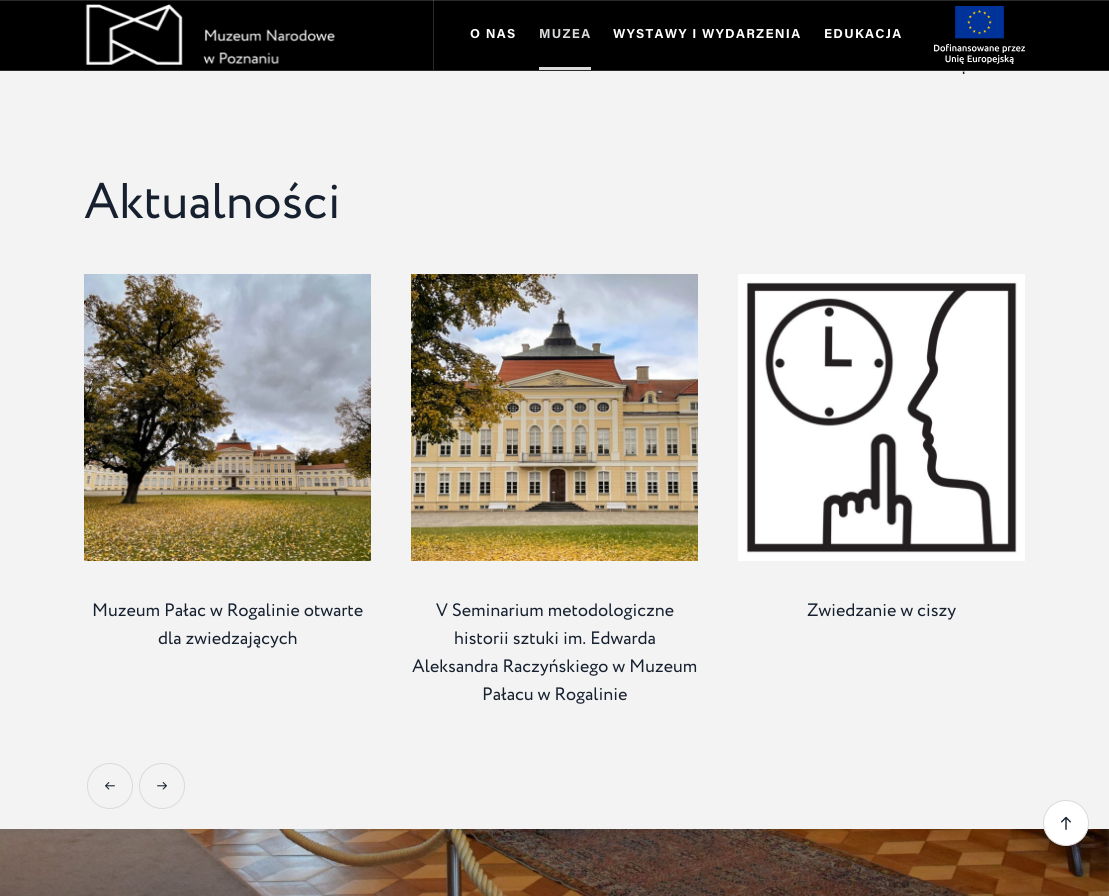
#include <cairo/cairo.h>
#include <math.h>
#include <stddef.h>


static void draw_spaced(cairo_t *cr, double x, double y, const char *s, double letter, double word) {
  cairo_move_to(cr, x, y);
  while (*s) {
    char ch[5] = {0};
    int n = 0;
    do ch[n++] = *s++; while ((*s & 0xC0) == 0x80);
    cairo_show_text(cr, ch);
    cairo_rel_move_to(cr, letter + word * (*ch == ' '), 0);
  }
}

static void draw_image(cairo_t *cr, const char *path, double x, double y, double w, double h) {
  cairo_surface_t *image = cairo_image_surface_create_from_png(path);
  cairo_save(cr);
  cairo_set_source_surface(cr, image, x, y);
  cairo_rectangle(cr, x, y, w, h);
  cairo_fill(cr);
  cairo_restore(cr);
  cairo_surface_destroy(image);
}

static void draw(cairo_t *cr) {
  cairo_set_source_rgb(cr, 1, 1, 1);
  cairo_paint(cr);
  cairo_set_source_rgb(cr, 43 / 255.0, 43 / 255.0, 43 / 255.0);
  cairo_rectangle(cr, 0, 0, 1109, 1);
  cairo_fill(cr);
  cairo_set_source_rgb(cr, 0, 0, 0);
  cairo_rectangle(cr, 0, 1, 1109, 69);
  cairo_fill(cr);
  cairo_set_source_rgb(cr, 43 / 255.0, 43 / 255.0, 43 / 255.0);
  cairo_rectangle(cr, 0, 70, 1109, 1);
  cairo_fill(cr);
  draw_image(cr, "images/1.png", 85, 4, 250, 61);
  cairo_set_source_rgba(cr, 1, 1, 1, 0.17);
  cairo_rectangle(cr, 433, 0, 1, 70);
  cairo_fill(cr);
  cairo_set_source_rgb(cr, 216 / 255.0, 218 / 255.0, 220 / 255.0);
  cairo_rectangle(cr, 539, 67, 52, 3);
  cairo_fill(cr);
  draw_image(cr, "images/2.png", 934, 6, 91, 58);
  cairo_set_source_rgb(cr, 243 / 255.0, 243 / 255.0, 243 / 255.0);
  cairo_rectangle(cr, 0, 71, 1109, 758);
  cairo_fill(cr);
  draw_image(cr, "images/3.png", 84, 182, 253, 37);
  draw_image(cr, "images/4.png", 84, 274, 287, 287);
  draw_image(cr, "images/5.png", 93, 603, 270, 17);
  draw_image(cr, "images/6.png", 158, 631, 139, 17);
  draw_image(cr, "images/7.png", 411, 274, 287, 287);
  draw_image(cr, "images/8.png", 436, 603, 238, 17);
  draw_image(cr, "images/9.png", 455, 631, 200, 14);
  draw_image(cr, "images/10.png", 412, 659, 285, 17);
  draw_image(cr, "images/11.png", 483, 687, 144, 17);
  draw_image(cr, "images/12.png", 738, 274, 287, 287);
  draw_image(cr, "images/13.png", 807, 603, 149, 17);
  cairo_arc(cr, 110, 786, 22.5, 0, 2 * M_PI);
  cairo_set_source_rgb(cr, 216 / 255.0, 218 / 255.0, 220 / 255.0);
  cairo_set_line_width(cr, 1);
  cairo_stroke(cr);
  draw_image(cr, "images/14.png", 105, 782, 10, 8);
  cairo_arc(cr, 162, 786, 22.5, 0, 2 * M_PI);
  cairo_stroke(cr);
  draw_image(cr, "images/15.png", 157, 782, 10, 8);
  draw_image(cr, "images/16.png", 0, 829, 1109, 67);
  cairo_set_source_rgb(cr, 1, 1, 1);
  cairo_arc(cr, 1066, 823, 22.5, 0, 2 * M_PI);
  cairo_fill_preserve(cr);
  cairo_set_source_rgb(cr, 216 / 255.0, 218 / 255.0, 220 / 255.0);
  cairo_stroke(cr);
  draw_image(cr, "images/17.png", 1061, 816, 10, 14);
  cairo_select_font_face(cr, "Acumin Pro", CAIRO_FONT_SLANT_NORMAL, CAIRO_FONT_WEIGHT_BOLD);
  cairo_set_font_size(cr, 13);
  cairo_set_source_rgb(cr, 1, 1, 1);
  draw_spaced(cr, 470, 38, "O NAS", 1.3, 0);
  cairo_set_source_rgb(cr, 216 / 255.0, 218 / 255.0, 220 / 255.0);
  draw_spaced(cr, 539, 38, "MUZEA", 1.3, 0);
  cairo_set_source_rgb(cr, 1, 1, 1);
  draw_spaced(cr, 613, 38, "WYSTAWY I WYDARZENIA", 1.3, 0);
  draw_spaced(cr, 824, 38, "EDUKACJA", 1.3, 0);
  cairo_select_font_face(cr, "Acumin Pro", CAIRO_FONT_SLANT_NORMAL, CAIRO_FONT_WEIGHT_NORMAL);
  cairo_set_font_size(cr, 16);
  cairo_set_source_rgb(cr, 22 / 255.0, 32 / 255.0, 47 / 255.0);
  cairo_move_to(cr, 962, 74);
  cairo_show_text(cr, ".");
}

int main(void) {
  cairo_surface_t *surface = cairo_image_surface_create(CAIRO_FORMAT_RGB24, 1109, 896);
  cairo_t *cr = cairo_create(surface);
  cairo_font_options_t *options = cairo_font_options_create();
  cairo_font_options_set_hint_metrics(options, CAIRO_HINT_METRICS_OFF);
  cairo_font_options_set_hint_style(options, CAIRO_HINT_STYLE_NONE);
  cairo_set_font_options(cr, options);
  cairo_set_miter_limit(cr, 4);
  draw(cr);
  cairo_surface_write_to_png(surface, "out.png");
  cairo_font_options_destroy(options);
  cairo_destroy(cr);
  cairo_surface_destroy(surface);
  return 0;
}
